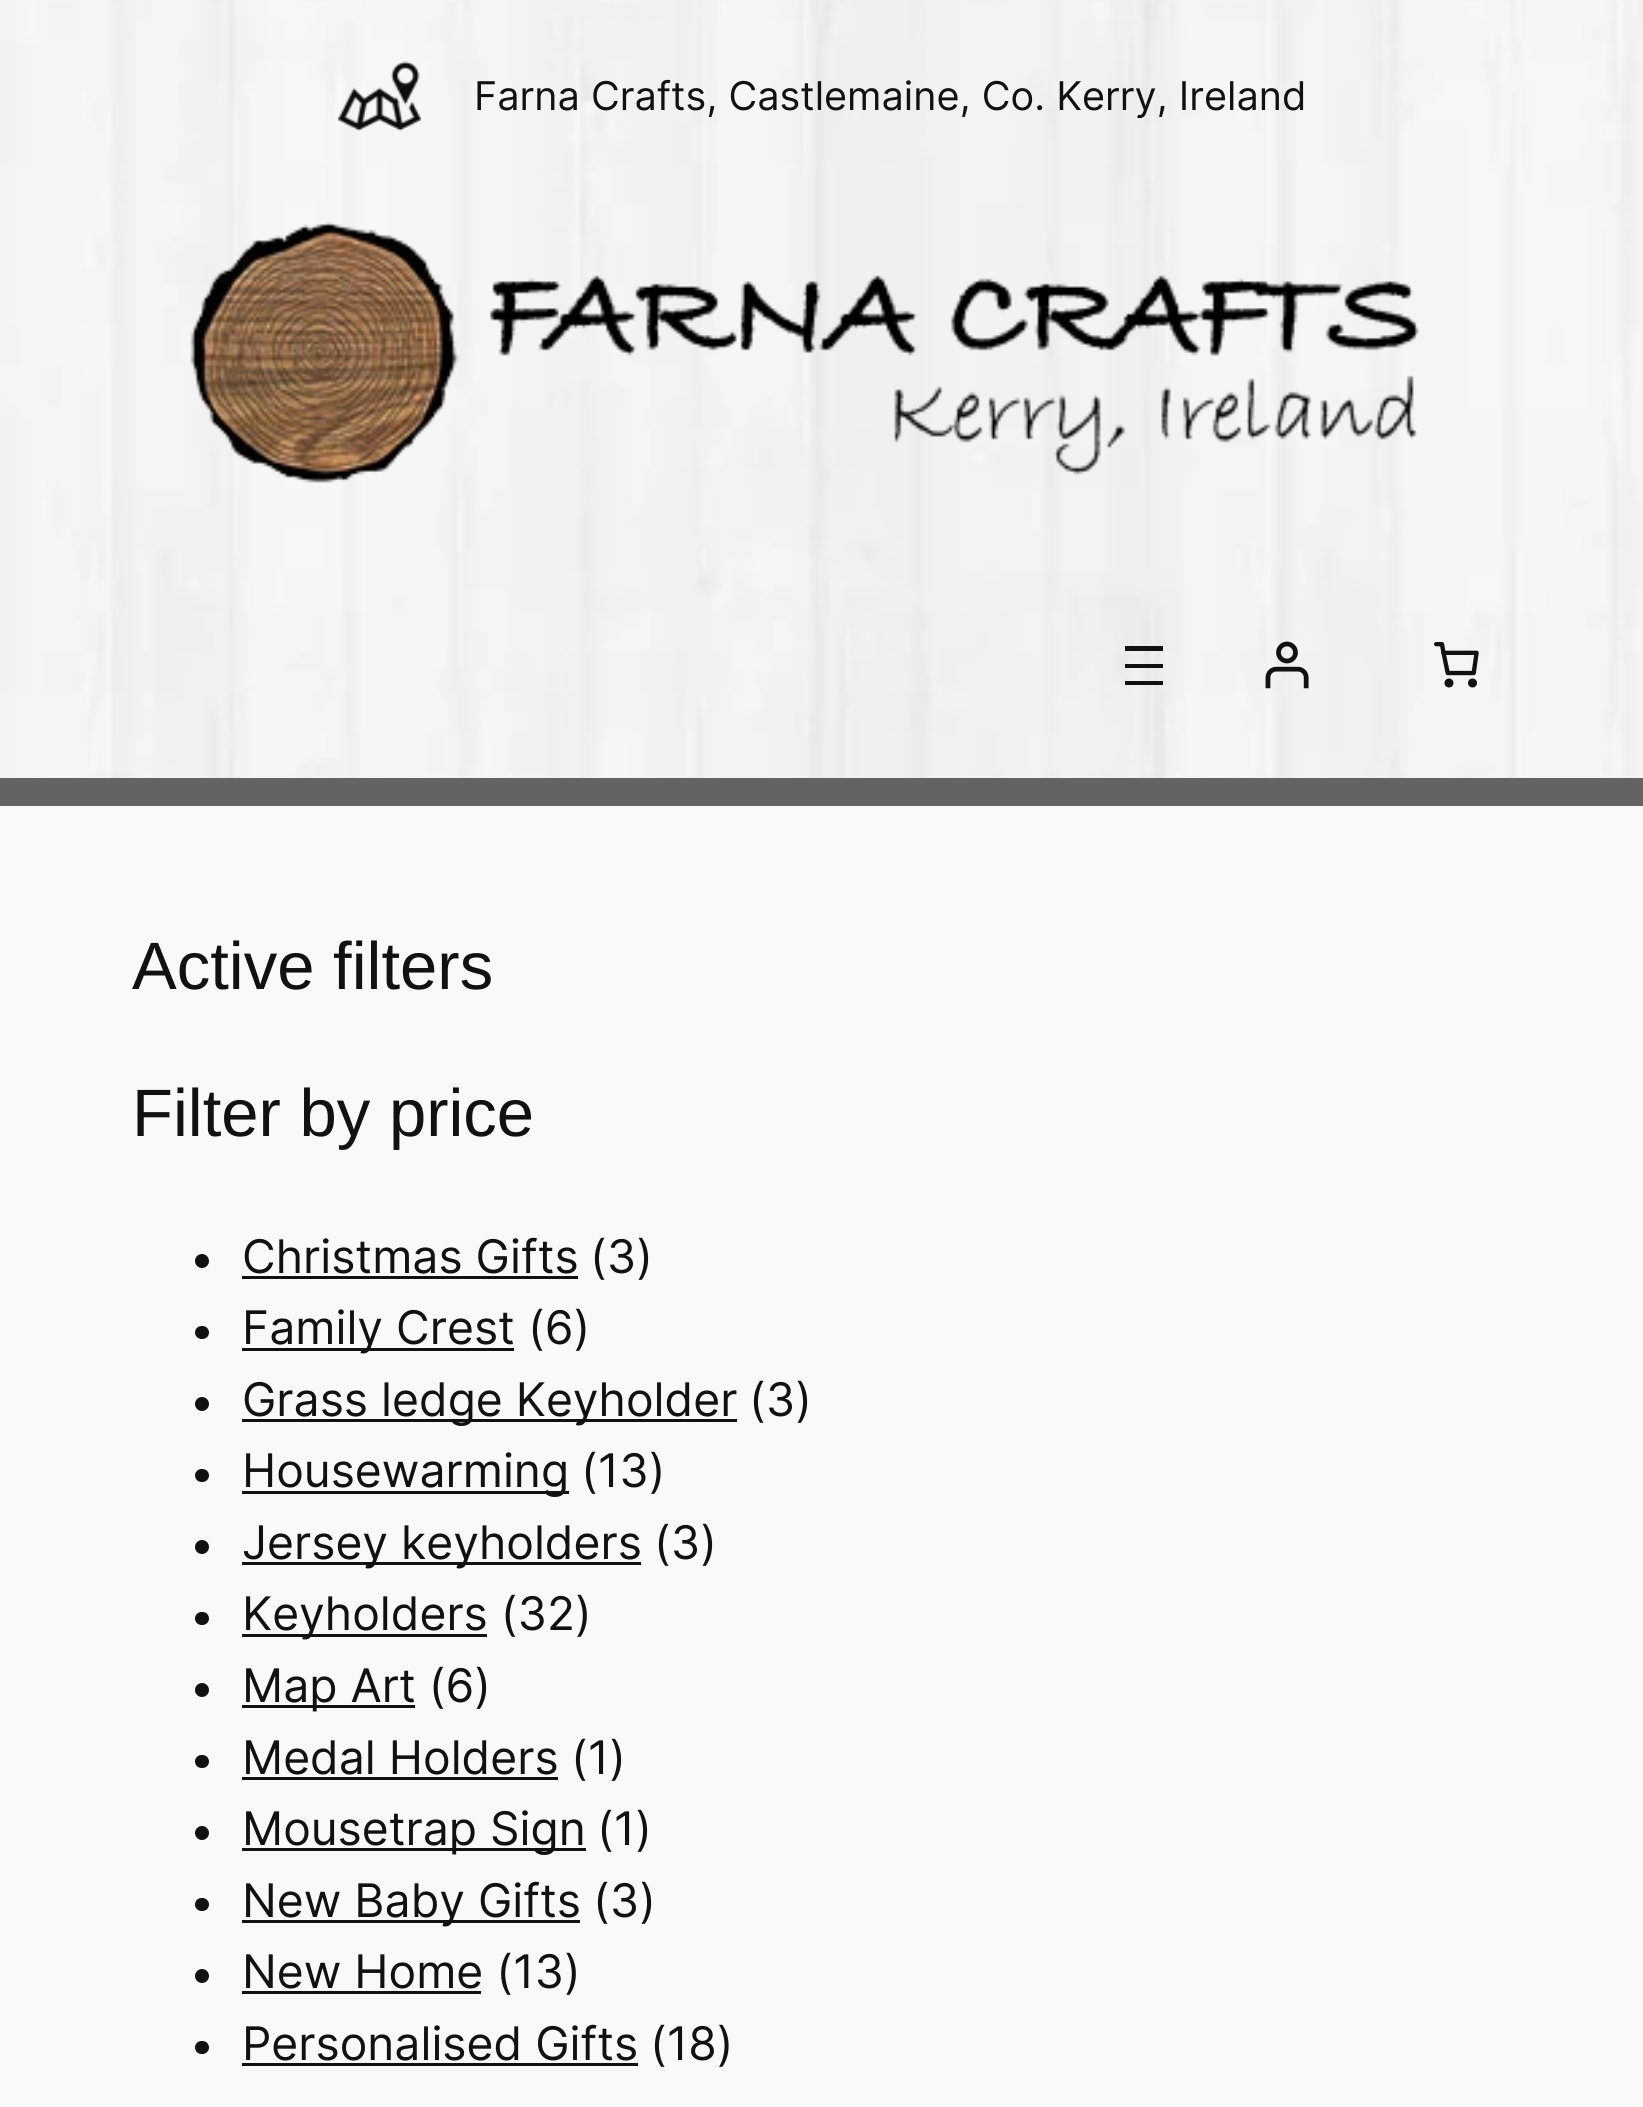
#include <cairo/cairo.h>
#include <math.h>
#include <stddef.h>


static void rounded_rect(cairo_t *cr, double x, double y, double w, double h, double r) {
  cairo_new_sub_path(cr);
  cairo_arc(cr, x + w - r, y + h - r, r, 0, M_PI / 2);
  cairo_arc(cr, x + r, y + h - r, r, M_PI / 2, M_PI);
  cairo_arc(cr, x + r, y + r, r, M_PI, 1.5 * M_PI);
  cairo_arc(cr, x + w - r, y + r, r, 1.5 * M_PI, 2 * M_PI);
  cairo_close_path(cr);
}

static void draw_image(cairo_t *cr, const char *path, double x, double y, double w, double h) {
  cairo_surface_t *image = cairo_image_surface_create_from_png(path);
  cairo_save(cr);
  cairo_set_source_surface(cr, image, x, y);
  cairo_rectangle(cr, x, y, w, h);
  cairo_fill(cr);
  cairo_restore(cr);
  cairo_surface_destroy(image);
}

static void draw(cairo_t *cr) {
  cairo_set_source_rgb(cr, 249 / 255.0, 249 / 255.0, 249 / 255.0);
  cairo_paint(cr);
  draw_image(cr, "images/1.png", 0, 0, 1643, 778);
  cairo_set_source_rgb(cr, 99 / 255.0, 99 / 255.0, 99 / 255.0);
  cairo_rectangle(cr, 0, 778, 1643, 28);
  cairo_fill(cr);
  draw_image(cr, "images/2.png", 338, 61, 83, 71);
  draw_image(cr, "images/3.png", 190, 221, 1229, 262);
  cairo_set_source_rgb(cr, 17 / 255.0, 17 / 255.0, 17 / 255.0);
  cairo_rectangle(cr, 1125, 646, 38, 5);
  cairo_fill(cr);
  cairo_rectangle(cr, 1125, 664, 38, 4);
  cairo_fill(cr);
  cairo_rectangle(cr, 1125, 681, 38, 4);
  cairo_fill(cr);
  draw_image(cr, "images/4.png", 1265, 641, 44, 48);
  draw_image(cr, "images/5.png", 1434, 642, 45, 46);
  cairo_arc(cr, 202, 1261, 7, 0, 2 * M_PI);
  cairo_fill(cr);
  cairo_rectangle(cr, 242, 1276, 336, 3);
  cairo_fill(cr);
  rounded_rect(cr, 195, 1326, 14, 13, 6.5);
  cairo_fill(cr);
  cairo_rectangle(cr, 242, 1348, 272, 3);
  cairo_fill(cr);
  cairo_arc(cr, 202, 1404, 7, 0, 2 * M_PI);
  cairo_fill(cr);
  cairo_rectangle(cr, 242, 1419, 495, 3);
  cairo_fill(cr);
  rounded_rect(cr, 195, 1469, 14, 13, 6.5);
  cairo_fill(cr);
  cairo_rectangle(cr, 242, 1491, 327, 3);
  cairo_fill(cr);
  cairo_arc(cr, 202, 1547, 7, 0, 2 * M_PI);
  cairo_fill(cr);
  cairo_rectangle(cr, 242, 1562, 399, 3);
  cairo_fill(cr);
  rounded_rect(cr, 195, 1612, 14, 13, 6.5);
  cairo_fill(cr);
  cairo_rectangle(cr, 242, 1634, 245, 3);
  cairo_fill(cr);
  cairo_arc(cr, 202, 1690, 7, 0, 2 * M_PI);
  cairo_fill(cr);
  cairo_rectangle(cr, 242, 1705, 173, 3);
  cairo_fill(cr);
  rounded_rect(cr, 195, 1755, 14, 13, 6.5);
  cairo_fill(cr);
  cairo_rectangle(cr, 242, 1777, 316, 3);
  cairo_fill(cr);
  cairo_arc(cr, 202, 1833, 7, 0, 2 * M_PI);
  cairo_fill(cr);
  cairo_rectangle(cr, 242, 1848, 344, 3);
  cairo_fill(cr);
  rounded_rect(cr, 195, 1898, 14, 13, 6.5);
  cairo_fill(cr);
  cairo_rectangle(cr, 242, 1920, 338, 3);
  cairo_fill(cr);
  cairo_arc(cr, 202, 1976, 7, 0, 2 * M_PI);
  cairo_fill(cr);
  cairo_rectangle(cr, 242, 1991, 239, 3);
  cairo_fill(cr);
  rounded_rect(cr, 195, 2041, 14, 13, 6.5);
  cairo_fill(cr);
  cairo_rectangle(cr, 242, 2063, 396, 3);
  cairo_fill(cr);
  cairo_select_font_face(cr, "Inter", CAIRO_FONT_SLANT_NORMAL, CAIRO_FONT_WEIGHT_NORMAL);
  cairo_set_font_size(cr, 39.6);
  cairo_move_to(cr, 474, 110);
  cairo_show_text(cr, "Farna Crafts, Castlemaine, Co. Kerry, Ireland");
  cairo_select_font_face(cr, "Liberation Sans", CAIRO_FONT_SLANT_NORMAL, CAIRO_FONT_WEIGHT_NORMAL);
  cairo_set_font_size(cr, 67);
  cairo_move_to(cr, 132, 989);
  cairo_show_text(cr, "Active filters");
  cairo_move_to(cr, 132, 1136);
  cairo_show_text(cr, "Filter by price");
  cairo_select_font_face(cr, "Inter", CAIRO_FONT_SLANT_NORMAL, CAIRO_FONT_WEIGHT_NORMAL);
  cairo_set_font_size(cr, 46.25);
  cairo_move_to(cr, 242, 1273);
  cairo_show_text(cr, "Christmas Gifts");
  cairo_move_to(cr, 590, 1273);
  cairo_show_text(cr, "(3)");
  cairo_move_to(cr, 242, 1344);
  cairo_show_text(cr, "Family Crest (6)");
  cairo_move_to(cr, 242, 1416);
  cairo_show_text(cr, "Grass ledge Keyholder");
  cairo_move_to(cr, 749, 1416);
  cairo_show_text(cr, "(3)");
  cairo_move_to(cr, 242, 1487);
  cairo_show_text(cr, "Housewarming");
  cairo_move_to(cr, 581, 1487);
  cairo_show_text(cr, "(13)");
  cairo_move_to(cr, 242, 1559);
  cairo_show_text(cr, "Jersey keyholders");
  cairo_move_to(cr, 654, 1559);
  cairo_show_text(cr, "(3)");
  cairo_move_to(cr, 242, 1630);
  cairo_show_text(cr, "Keyholders (32)");
  cairo_move_to(cr, 242, 1702);
  cairo_show_text(cr, "Map Art (6)");
  cairo_move_to(cr, 242, 1774);
  cairo_show_text(cr, "Medal Holders");
  cairo_move_to(cr, 571, 1774);
  cairo_show_text(cr, "(1)");
  cairo_move_to(cr, 242, 1845);
  cairo_show_text(cr, "Mousetrap Sign");
  cairo_move_to(cr, 597, 1845);
  cairo_show_text(cr, "(1)");
  cairo_move_to(cr, 242, 1917);
  cairo_show_text(cr, "New Baby Gifts");
  cairo_move_to(cr, 593, 1917);
  cairo_show_text(cr, "(3)");
  cairo_move_to(cr, 242, 1988);
  cairo_show_text(cr, "New Home (13)");
  cairo_move_to(cr, 242, 2060);
  cairo_show_text(cr, "Personalised Gifts");
  cairo_move_to(cr, 650, 2060);
  cairo_show_text(cr, "(18)");
}

int main(void) {
  cairo_surface_t *surface = cairo_image_surface_create(CAIRO_FORMAT_RGB24, 1643, 2107);
  cairo_t *cr = cairo_create(surface);
  cairo_font_options_t *options = cairo_font_options_create();
  cairo_font_options_set_hint_metrics(options, CAIRO_HINT_METRICS_OFF);
  cairo_font_options_set_hint_style(options, CAIRO_HINT_STYLE_NONE);
  cairo_set_font_options(cr, options);
  cairo_set_miter_limit(cr, 4);
  draw(cr);
  cairo_surface_write_to_png(surface, "out.png");
  cairo_font_options_destroy(options);
  cairo_destroy(cr);
  cairo_surface_destroy(surface);
  return 0;
}
